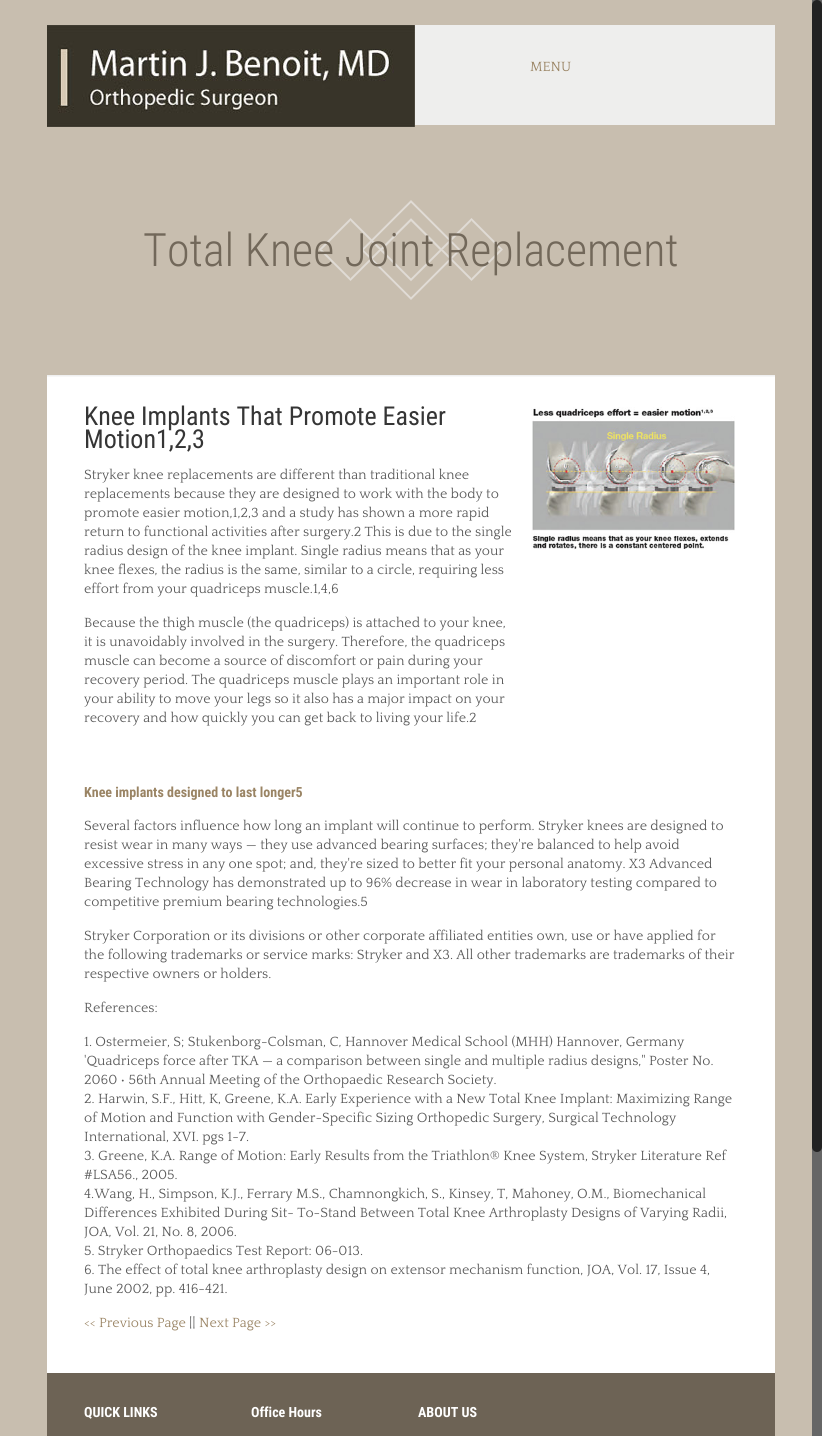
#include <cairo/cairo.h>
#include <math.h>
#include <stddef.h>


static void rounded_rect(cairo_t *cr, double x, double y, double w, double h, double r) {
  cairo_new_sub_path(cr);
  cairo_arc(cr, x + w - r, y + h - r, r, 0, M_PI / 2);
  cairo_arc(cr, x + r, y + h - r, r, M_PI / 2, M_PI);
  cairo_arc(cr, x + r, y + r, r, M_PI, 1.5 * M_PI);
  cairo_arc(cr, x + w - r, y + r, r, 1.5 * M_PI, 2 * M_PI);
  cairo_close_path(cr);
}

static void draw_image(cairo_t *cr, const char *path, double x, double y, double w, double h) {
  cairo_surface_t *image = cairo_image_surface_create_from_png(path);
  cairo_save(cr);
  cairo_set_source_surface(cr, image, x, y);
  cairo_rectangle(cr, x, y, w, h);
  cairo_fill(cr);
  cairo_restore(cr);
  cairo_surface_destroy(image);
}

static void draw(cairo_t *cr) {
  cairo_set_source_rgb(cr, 200 / 255.0, 190 / 255.0, 175 / 255.0);
  cairo_paint(cr);
  cairo_set_source_rgb(cr, 1, 1, 1);
  cairo_rectangle(cr, 47, 375, 728, 998);
  cairo_fill(cr);
  cairo_set_source_rgb(cr, 238 / 255.0, 238 / 255.0, 237 / 255.0);
  cairo_rectangle(cr, 415, 25, 360, 100);
  cairo_fill(cr);
  draw_image(cr, "images/1.png", 47, 25, 368, 102);
  draw_image(cr, "images/2.png", 319, 200, 184, 100);
  draw_image(cr, "images/3.png", 47, 375, 728, 2);
  draw_image(cr, "images/4.png", 531, 407, 204, 143);
  cairo_set_source_rgb(cr, 109 / 255.0, 99 / 255.0, 85 / 255.0);
  cairo_rectangle(cr, 47, 1373, 728, 63);
  cairo_fill(cr);
  cairo_set_source_rgb(cr, 102 / 255.0, 102 / 255.0, 102 / 255.0);
  cairo_rectangle(cr, 812, 0, 10, 1436);
  cairo_fill(cr);
  cairo_set_source_rgb(cr, 34 / 255.0, 34 / 255.0, 34 / 255.0);
  rounded_rect(cr, 812, 0, 10, 1152, 5);
  cairo_fill(cr);
  cairo_select_font_face(cr, "Quattrocento", CAIRO_FONT_SLANT_NORMAL, CAIRO_FONT_WEIGHT_NORMAL);
  cairo_set_font_size(cr, 14);
  cairo_set_source_rgb(cr, 154 / 255.0, 132 / 255.0, 100 / 255.0);
  cairo_move_to(cr, 530, 71);
  cairo_show_text(cr, "MENU");
  cairo_select_font_face(cr, "Roboto Condensed Light", CAIRO_FONT_SLANT_NORMAL, CAIRO_FONT_WEIGHT_NORMAL);
  cairo_set_font_size(cr, 46);
  cairo_set_source_rgb(cr, 114 / 255.0, 104 / 255.0, 90 / 255.0);
  cairo_move_to(cr, 143, 266);
  cairo_show_text(cr, "Total Knee Joint Replacement");
  cairo_select_font_face(cr, "Roboto Condensed", CAIRO_FONT_SLANT_NORMAL, CAIRO_FONT_WEIGHT_NORMAL);
  cairo_set_font_size(cr, 26);
  cairo_set_source_rgb(cr, 53 / 255.0, 53 / 255.0, 53 / 255.0);
  cairo_move_to(cr, 84, 425);
  cairo_show_text(cr, "Knee Implants That Promote Easier");
  cairo_move_to(cr, 84, 448);
  cairo_show_text(cr, "Motion1,2,3");
  cairo_select_font_face(cr, "Quattrocento", CAIRO_FONT_SLANT_NORMAL, CAIRO_FONT_WEIGHT_NORMAL);
  cairo_set_font_size(cr, 14);
  cairo_set_source_rgb(cr, 90 / 255.0, 90 / 255.0, 90 / 255.0);
  cairo_move_to(cr, 84, 479);
  cairo_show_text(cr, "Stryker knee replacements are different than traditional knee");
  cairo_move_to(cr, 84, 498);
  cairo_show_text(cr, "replacements because they are designed to work with the body to");
  cairo_move_to(cr, 84, 517);
  cairo_show_text(cr, "promote easier motion,1,2,3 and a study has shown a more rapid");
  cairo_move_to(cr, 84, 536);
  cairo_show_text(cr, "return to functional activities after surgery.2 This is due to the single");
  cairo_move_to(cr, 84, 555);
  cairo_show_text(cr, "radius design of the knee implant. Single radius means that as your");
  cairo_move_to(cr, 84, 574);
  cairo_show_text(cr, "knee flexes, the radius is the same, similar to a circle, requiring less");
  cairo_move_to(cr, 84, 593);
  cairo_show_text(cr, "effort from your quadriceps muscle.1,4,6");
  cairo_move_to(cr, 84, 627);
  cairo_show_text(cr, "Because the thigh muscle (the quadriceps) is attached to your knee,");
  cairo_move_to(cr, 84, 646);
  cairo_show_text(cr, "it is unavoidably involved in the surgery. Therefore, the quadriceps");
  cairo_move_to(cr, 84, 665);
  cairo_show_text(cr, "muscle can become a source of discomfort or pain during your");
  cairo_move_to(cr, 84, 684);
  cairo_show_text(cr, "recovery period. The quadriceps muscle plays an important role in");
  cairo_move_to(cr, 84, 703);
  cairo_show_text(cr, "your ability to move your legs so it also has a major impact on your");
  cairo_move_to(cr, 84, 722);
  cairo_show_text(cr, "recovery and how quickly you can get back to living your life.2");
  cairo_select_font_face(cr, "Roboto Condensed", CAIRO_FONT_SLANT_NORMAL, CAIRO_FONT_WEIGHT_BOLD);
  cairo_set_source_rgb(cr, 154 / 255.0, 132 / 255.0, 100 / 255.0);
  cairo_move_to(cr, 84, 797);
  cairo_show_text(cr, "Knee implants designed to last longer5");
  cairo_select_font_face(cr, "Quattrocento", CAIRO_FONT_SLANT_NORMAL, CAIRO_FONT_WEIGHT_NORMAL);
  cairo_set_source_rgb(cr, 90 / 255.0, 90 / 255.0, 90 / 255.0);
  cairo_move_to(cr, 84, 830);
  cairo_show_text(cr, "Several factors influence how long an implant will continue to perform. Stryker knees are designed to");
  cairo_move_to(cr, 84, 849);
  cairo_show_text(cr, "resist wear in many ways — they use advanced bearing surfaces; they're balanced to help avoid");
  cairo_move_to(cr, 84, 868);
  cairo_show_text(cr, "excessive stress in any one spot; and, they're sized to better fit your personal anatomy. X3 Advanced");
  cairo_move_to(cr, 84, 887);
  cairo_show_text(cr, "Bearing Technology has demonstrated up to 96% decrease in wear in laboratory testing compared to");
  cairo_move_to(cr, 84, 906);
  cairo_show_text(cr, "competitive premium bearing technologies.5");
  cairo_move_to(cr, 84, 940);
  cairo_show_text(cr, "Stryker Corporation or its divisions or other corporate affiliated entities own, use or have applied for");
  cairo_move_to(cr, 84, 959);
  cairo_show_text(cr, "the following trademarks or service marks: Stryker and X3. All other trademarks are trademarks of their");
  cairo_move_to(cr, 84, 978);
  cairo_show_text(cr, "respective owners or holders.");
  cairo_move_to(cr, 84, 1012);
  cairo_show_text(cr, "References:");
  cairo_move_to(cr, 84, 1046);
  cairo_show_text(cr, "1. Ostermeier, S; Stukenborg-Colsman, C, Hannover Medical School (MHH) Hannover, Germany");
  cairo_move_to(cr, 84, 1065);
  cairo_show_text(cr, "'Quadriceps force after TKA — a comparison between single and multiple radius designs,\" Poster No.");
  cairo_move_to(cr, 84, 1084);
  cairo_show_text(cr, "2060 • 56th Annual Meeting of the Orthopaedic Research Society.");
  cairo_move_to(cr, 84, 1103);
  cairo_show_text(cr, "2. Harwin, S.F., Hitt, K, Greene, K.A. Early Experience with a New Total Knee Implant: Maximizing Range");
  cairo_move_to(cr, 84, 1122);
  cairo_show_text(cr, "of Motion and Function with Gender-Specific Sizing Orthopedic Surgery, Surgical Technology");
  cairo_move_to(cr, 84, 1141);
  cairo_show_text(cr, "International, XVI. pgs 1-7.");
  cairo_move_to(cr, 84, 1160);
  cairo_show_text(cr, "3. Greene, K.A. Range of Motion: Early Results from the Triathlon® Knee System, Stryker Literature Ref");
  cairo_move_to(cr, 84, 1179);
  cairo_show_text(cr, "#LSA56., 2005.");
  cairo_move_to(cr, 84, 1198);
  cairo_show_text(cr, "4.Wang, H., Simpson, K.J., Ferrary M.S., Chamnongkich, S., Kinsey, T, Mahoney, O.M., Biomechanical");
  cairo_move_to(cr, 84, 1217);
  cairo_show_text(cr, "Differences Exhibited During Sit- To-Stand Between Total Knee Arthroplasty Designs of Varying Radii,");
  cairo_move_to(cr, 84, 1236);
  cairo_show_text(cr, "JOA, Vol. 21, No. 8, 2006.");
  cairo_move_to(cr, 84, 1255);
  cairo_show_text(cr, "5. Stryker Orthopaedics Test Report: 06-013.");
  cairo_move_to(cr, 84, 1274);
  cairo_show_text(cr, "6. The effect of total knee arthroplasty design on extensor mechanism function, JOA, Vol. 17, Issue 4,");
  cairo_move_to(cr, 84, 1293);
  cairo_show_text(cr, "June 2002, pp. 416-421.");
  cairo_set_source_rgb(cr, 154 / 255.0, 132 / 255.0, 100 / 255.0);
  cairo_move_to(cr, 84, 1327);
  cairo_show_text(cr, "<< Previous Page");
  cairo_set_source_rgb(cr, 90 / 255.0, 90 / 255.0, 90 / 255.0);
  cairo_move_to(cr, 189, 1327);
  cairo_show_text(cr, "||");
  cairo_set_source_rgb(cr, 154 / 255.0, 132 / 255.0, 100 / 255.0);
  cairo_move_to(cr, 199, 1327);
  cairo_show_text(cr, "Next Page >>");
  cairo_select_font_face(cr, "Roboto Condensed", CAIRO_FONT_SLANT_NORMAL, CAIRO_FONT_WEIGHT_BOLD);
  cairo_set_source_rgb(cr, 1, 1, 1);
  cairo_move_to(cr, 84, 1417);
  cairo_show_text(cr, "QUICK LINKS");
  cairo_move_to(cr, 251, 1417);
  cairo_show_text(cr, "Office Hours");
  cairo_move_to(cr, 418, 1417);
  cairo_show_text(cr, "ABOUT US");
}

int main(void) {
  cairo_surface_t *surface = cairo_image_surface_create(CAIRO_FORMAT_RGB24, 822, 1436);
  cairo_t *cr = cairo_create(surface);
  cairo_font_options_t *options = cairo_font_options_create();
  cairo_font_options_set_hint_metrics(options, CAIRO_HINT_METRICS_OFF);
  cairo_font_options_set_hint_style(options, CAIRO_HINT_STYLE_NONE);
  cairo_set_font_options(cr, options);
  cairo_set_miter_limit(cr, 4);
  draw(cr);
  cairo_surface_write_to_png(surface, "out.png");
  cairo_font_options_destroy(options);
  cairo_destroy(cr);
  cairo_surface_destroy(surface);
  return 0;
}
